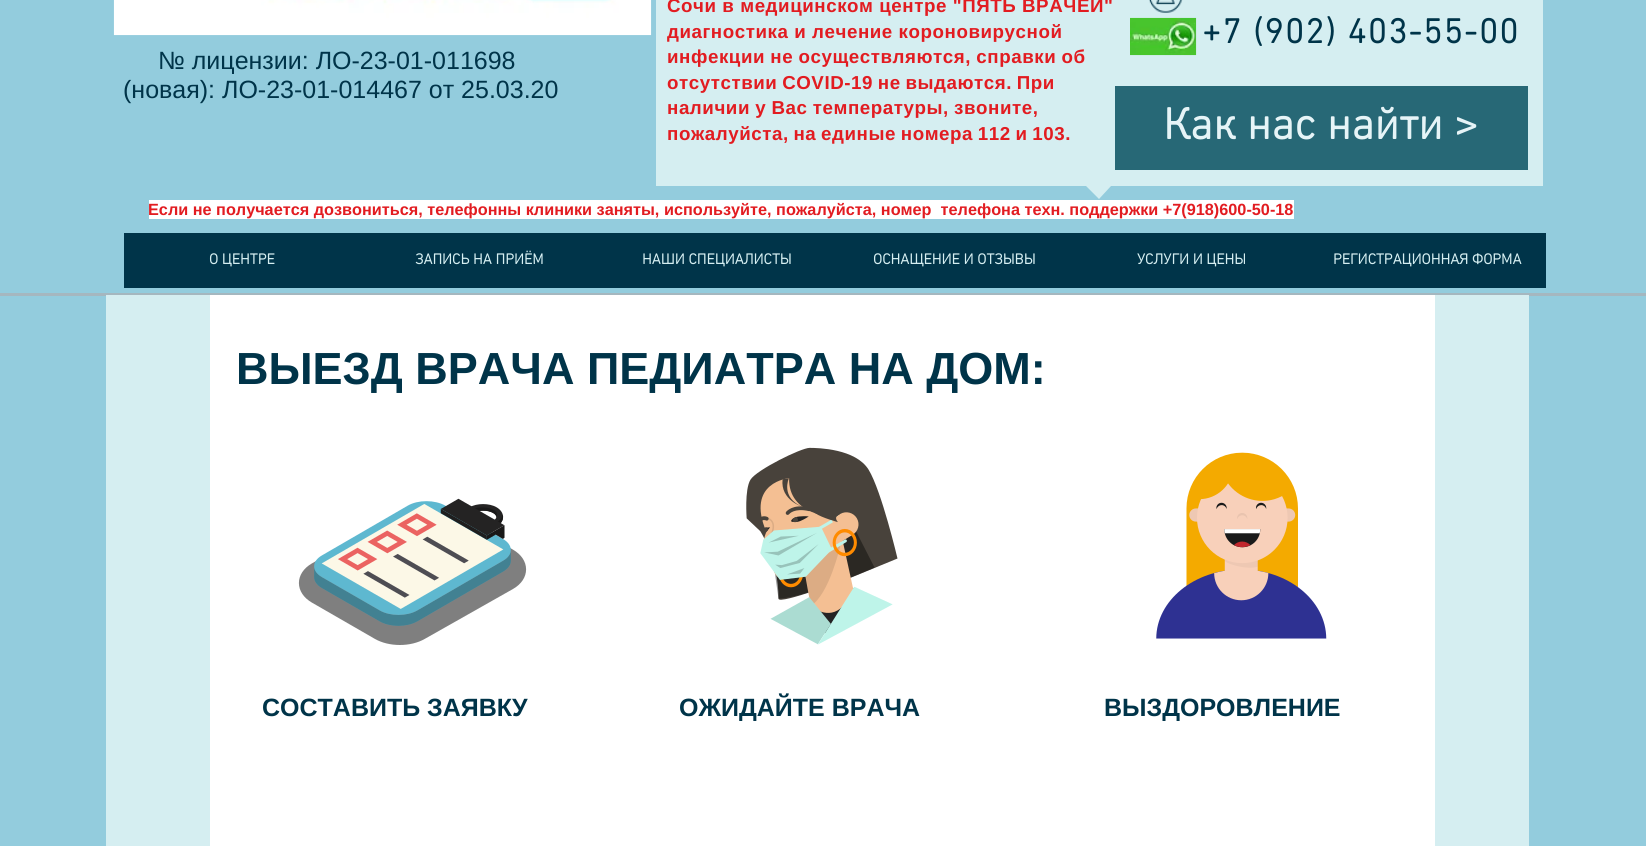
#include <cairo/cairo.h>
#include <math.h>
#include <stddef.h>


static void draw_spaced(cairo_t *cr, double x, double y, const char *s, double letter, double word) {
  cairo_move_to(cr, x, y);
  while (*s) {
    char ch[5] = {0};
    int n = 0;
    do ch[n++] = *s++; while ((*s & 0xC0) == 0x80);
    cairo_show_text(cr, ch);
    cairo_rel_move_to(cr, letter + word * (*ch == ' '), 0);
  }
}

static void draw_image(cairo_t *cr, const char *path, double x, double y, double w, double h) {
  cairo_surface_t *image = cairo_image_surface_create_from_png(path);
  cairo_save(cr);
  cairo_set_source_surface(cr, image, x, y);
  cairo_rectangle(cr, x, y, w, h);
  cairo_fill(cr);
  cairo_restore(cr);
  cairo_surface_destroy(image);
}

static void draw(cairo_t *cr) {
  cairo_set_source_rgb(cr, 147 / 255.0, 204 / 255.0, 221 / 255.0);
  cairo_paint(cr);
  draw_image(cr, "images/1.png", 113, 0, 539, 36);
  cairo_set_source_rgb(cr, 213 / 255.0, 238 / 255.0, 241 / 255.0);
  cairo_rectangle(cr, 656, 0, 887, 186);
  cairo_fill(cr);
  draw_image(cr, "images/2.png", 1149, 0, 34, 13);
  draw_image(cr, "images/3.png", 1130, 17, 67, 39);
  cairo_set_source_rgb(cr, 39 / 255.0, 104 / 255.0, 118 / 255.0);
  cairo_rectangle(cr, 1115, 86, 413, 84);
  cairo_fill(cr);
  cairo_set_source_rgb(cr, 213 / 255.0, 238 / 255.0, 241 / 255.0);
  cairo_new_path(cr);
  cairo_move_to(cr, 1086, 186);
  cairo_line_to(cr, 1111, 186);
  cairo_line_to(cr, 1099, 199);
  cairo_close_path(cr);
  cairo_fill(cr);
  cairo_set_source_rgb(cr, 1, 1, 1);
  cairo_rectangle(cr, 149, 200, 1145, 19);
  cairo_fill(cr);
  cairo_set_source_rgb(cr, 0, 52 / 255.0, 73 / 255.0);
  cairo_rectangle(cr, 124, 233, 1422, 55);
  cairo_fill(cr);
  cairo_set_source_rgb(cr, 165 / 255.0, 183 / 255.0, 191 / 255.0);
  cairo_rectangle(cr, 0, 293, 1646, 3);
  cairo_fill(cr);
  cairo_set_source_rgb(cr, 213 / 255.0, 238 / 255.0, 241 / 255.0);
  cairo_rectangle(cr, 106, 295, 1423, 551);
  cairo_fill(cr);
  cairo_set_source_rgb(cr, 1, 1, 1);
  cairo_rectangle(cr, 210, 295, 1225, 551);
  cairo_fill(cr);
  draw_image(cr, "images/4.png", 298, 498, 229, 147);
  draw_image(cr, "images/5.png", 746, 447, 152, 198);
  draw_image(cr, "images/6.png", 1156, 452, 171, 187);
  cairo_select_font_face(cr, "Liberation Sans", CAIRO_FONT_SLANT_NORMAL, CAIRO_FONT_WEIGHT_BOLD);
  cairo_set_font_size(cr, 18.75);
  cairo_set_source_rgb(cr, 226 / 255.0, 28 / 255.0, 33 / 255.0);
  draw_spaced(cr, 667, 12, "Сочи в медицинском центре \"ПЯТЬ ВРАЧЕЙ\"", 0.55, 0);
  draw_spaced(cr, 667, 38, "диагностика и лечение короновирусной", 0.55, 0);
  draw_spaced(cr, 667, 63, "инфекции не осуществляются, справки об", 0.55, -0.5);
  draw_spaced(cr, 667, 89, "отсутствии COVID-19 не выдаются. При", 0.55, -1);
  draw_spaced(cr, 667, 114, "наличии у Вас температуры, звоните,", 0.55, -0.5);
  draw_spaced(cr, 667, 140, "пожалуйста, на единые номера 112 и 103.", 0.55, -1);
  cairo_select_font_face(cr, "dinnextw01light", CAIRO_FONT_SLANT_NORMAL, CAIRO_FONT_WEIGHT_BOLD);
  cairo_set_font_size(cr, 35);
  cairo_set_source_rgb(cr, 0, 52 / 255.0, 73 / 255.0);
  draw_spaced(cr, 1202, 43, "+7 (902) 403-55-00", 1.75, 0);
  cairo_set_font_size(cr, 45);
  cairo_set_source_rgb(cr, 230 / 255.0, 244 / 255.0, 247 / 255.0);
  cairo_move_to(cr, 1163, 139);
  cairo_show_text(cr, "Как нас найти >");
  cairo_select_font_face(cr, "Liberation Sans", CAIRO_FONT_SLANT_NORMAL, CAIRO_FONT_WEIGHT_NORMAL);
  cairo_set_font_size(cr, 25);
  cairo_set_source_rgb(cr, 0, 52 / 255.0, 73 / 255.0);
  cairo_move_to(cr, 158, 69);
  cairo_show_text(cr, "№ лицензии: ЛО-23-01-011698");
  cairo_move_to(cr, 123, 98);
  cairo_show_text(cr, "(новая): ЛО-23-01-014467 от 25.03.20");
  cairo_select_font_face(cr, "Liberation Sans", CAIRO_FONT_SLANT_NORMAL, CAIRO_FONT_WEIGHT_BOLD);
  cairo_set_font_size(cr, 16.25);
  cairo_set_source_rgb(cr, 226 / 255.0, 28 / 255.0, 33 / 255.0);
  cairo_move_to(cr, 148, 215);
  cairo_show_text(cr, "Если не получается дозвониться, телефонны клиники заняты, используйте, пожалуйста, номер  телефона техн. поддержки +7(918)600-50-18");
  cairo_select_font_face(cr, "dinnextw01light", CAIRO_FONT_SLANT_NORMAL, CAIRO_FONT_WEIGHT_BOLD);
  cairo_set_font_size(cr, 15);
  cairo_set_source_rgb(cr, 213 / 255.0, 238 / 255.0, 241 / 255.0);
  cairo_move_to(cr, 209, 264);
  cairo_show_text(cr, "О ЦЕНТРЕ");
  cairo_move_to(cr, 415, 264);
  cairo_show_text(cr, "ЗАПИСЬ НА ПРИЁМ");
  cairo_move_to(cr, 642, 264);
  cairo_show_text(cr, "НАШИ СПЕЦИАЛИСТЫ");
  cairo_move_to(cr, 873, 264);
  cairo_show_text(cr, "ОСНАЩЕНИЕ И ОТЗЫВЫ");
  cairo_move_to(cr, 1137, 264);
  cairo_show_text(cr, "УСЛУГИ И ЦЕНЫ");
  cairo_move_to(cr, 1333, 264);
  cairo_show_text(cr, "РЕГИСТРАЦИОННАЯ ФОРМА");
  cairo_select_font_face(cr, "Liberation Sans", CAIRO_FONT_SLANT_NORMAL, CAIRO_FONT_WEIGHT_BOLD);
  cairo_set_font_size(cr, 45);
  cairo_set_source_rgb(cr, 0, 52 / 255.0, 73 / 255.0);
  cairo_move_to(cr, 236, 384);
  cairo_show_text(cr, "ВЫЕЗД ВРАЧА ПЕДИАТРА НА ДОМ:");
  cairo_set_font_size(cr, 25);
  cairo_move_to(cr, 262, 716);
  cairo_show_text(cr, "СОСТАВИТЬ ЗАЯВКУ");
  cairo_move_to(cr, 679, 716);
  cairo_show_text(cr, "ОЖИДАЙТЕ ВРАЧА");
  cairo_move_to(cr, 1104, 716);
  cairo_show_text(cr, "ВЫЗДОРОВЛЕНИЕ");
}

int main(void) {
  cairo_surface_t *surface = cairo_image_surface_create(CAIRO_FORMAT_RGB24, 1646, 846);
  cairo_t *cr = cairo_create(surface);
  cairo_font_options_t *options = cairo_font_options_create();
  cairo_font_options_set_hint_metrics(options, CAIRO_HINT_METRICS_OFF);
  cairo_font_options_set_hint_style(options, CAIRO_HINT_STYLE_NONE);
  cairo_set_font_options(cr, options);
  cairo_set_miter_limit(cr, 4);
  draw(cr);
  cairo_surface_write_to_png(surface, "out.png");
  cairo_font_options_destroy(options);
  cairo_destroy(cr);
  cairo_surface_destroy(surface);
  return 0;
}
